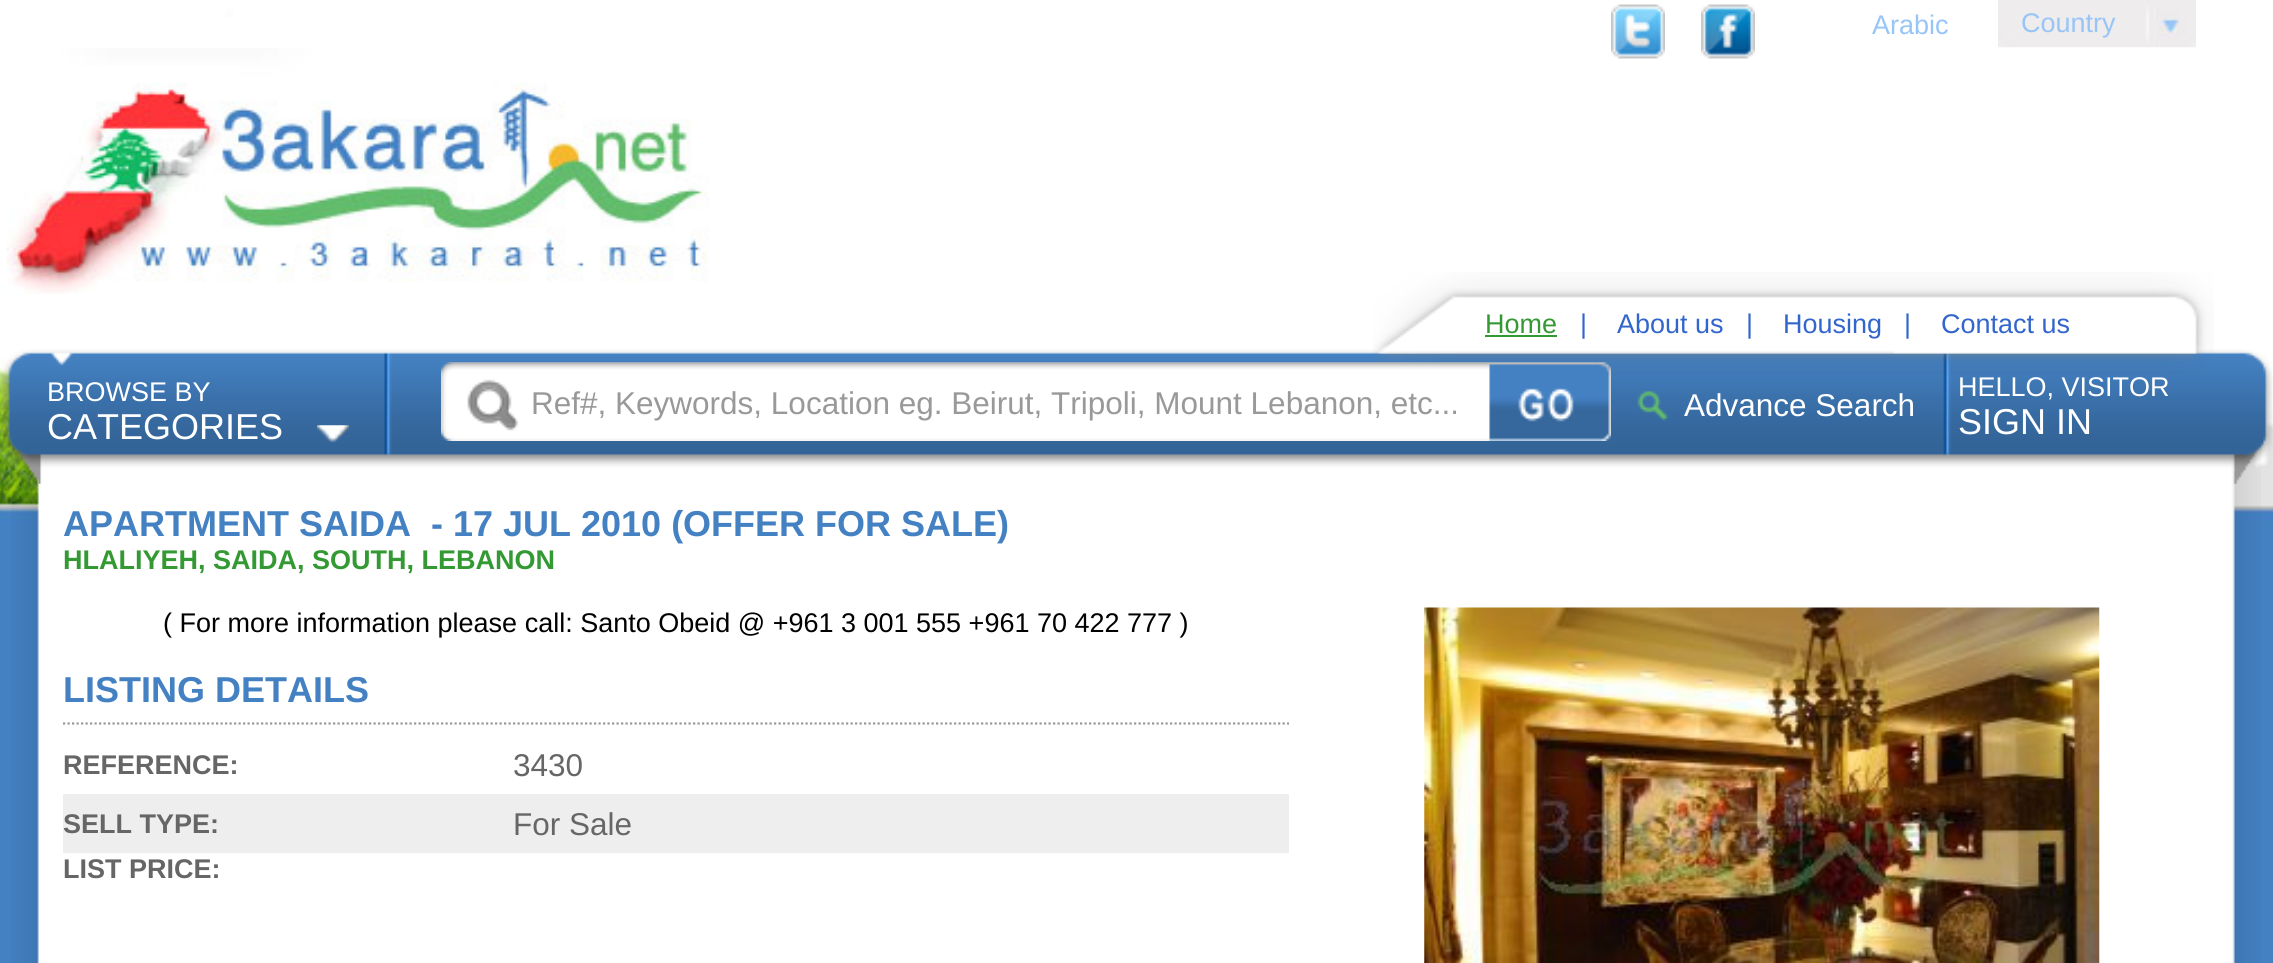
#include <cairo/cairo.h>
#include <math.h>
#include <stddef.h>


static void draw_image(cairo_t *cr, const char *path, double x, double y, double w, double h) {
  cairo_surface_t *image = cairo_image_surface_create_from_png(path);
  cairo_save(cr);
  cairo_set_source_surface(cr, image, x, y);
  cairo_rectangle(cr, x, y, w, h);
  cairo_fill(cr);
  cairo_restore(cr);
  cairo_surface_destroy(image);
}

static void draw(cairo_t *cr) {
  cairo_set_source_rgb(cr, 68 / 255.0, 129 / 255.0, 195 / 255.0);
  cairo_paint(cr);
  draw_image(cr, "images/1.png", 0, 0, 2273, 522);
  cairo_set_source_rgb(cr, 1, 1, 1);
  cairo_rectangle(cr, 40, 18, 2195, 453);
  cairo_fill(cr);
  draw_image(cr, "images/2.png", 1611, 4, 54, 55);
  draw_image(cr, "images/3.png", 1701, 4, 54, 55);
  draw_image(cr, "images/4.png", 1998, 0, 198, 48);
  draw_image(cr, "images/5.png", 6, 48, 703, 246);
  draw_image(cr, "images/11.png", 11, 448, 2250, 515);
  draw_image(cr, "images/6.png", 2, 349, 2271, 135);
  draw_image(cr, "images/7.png", 1373, 272, 841, 103);
  cairo_set_source_rgb(cr, 51 / 255.0, 153 / 255.0, 51 / 255.0);
  cairo_rectangle(cr, 1485, 335, 72, 2);
  cairo_fill(cr);
  draw_image(cr, "images/8.png", 317, 425, 32, 18);
  draw_image(cr, "images/9.png", 441, 362, 1170, 79);
  draw_image(cr, "images/10.png", 1637, 391, 31, 30);
  cairo_new_path(cr);
  cairo_move_to(cr, 63, 723.5);
  cairo_line_to(cr, 1289, 723.5);
  cairo_set_source_rgb(cr, 153 / 255.0, 153 / 255.0, 153 / 255.0);
  cairo_set_line_width(cr, 2.2);
  cairo_set_dash(cr, (double[]){2.25, 2.25}, 2, 0);
  cairo_stroke(cr);
  cairo_set_source_rgb(cr, 238 / 255.0, 238 / 255.0, 238 / 255.0);
  cairo_rectangle(cr, 63, 794, 1226, 59);
  cairo_fill(cr);
  draw_image(cr, "images/12.png", 1424, 607, 676, 356);
  cairo_select_font_face(cr, "Liberation Sans", CAIRO_FONT_SLANT_NORMAL, CAIRO_FONT_WEIGHT_NORMAL);
  cairo_set_font_size(cr, 27);
  cairo_set_source_rgb(cr, 151 / 255.0, 197 / 255.0, 248 / 255.0);
  cairo_move_to(cr, 1872, 34);
  cairo_show_text(cr, "Arabic");
  cairo_move_to(cr, 2021, 32);
  cairo_show_text(cr, "Country");
  cairo_set_source_rgb(cr, 51 / 255.0, 153 / 255.0, 51 / 255.0);
  cairo_move_to(cr, 1485, 333);
  cairo_show_text(cr, "Home");
  cairo_set_source_rgb(cr, 51 / 255.0, 102 / 255.0, 204 / 255.0);
  cairo_move_to(cr, 1580, 333);
  cairo_show_text(cr, "|");
  cairo_move_to(cr, 1617, 333);
  cairo_show_text(cr, "About us");
  cairo_move_to(cr, 1746, 333);
  cairo_show_text(cr, "|");
  cairo_move_to(cr, 1783, 333);
  cairo_show_text(cr, "Housing");
  cairo_move_to(cr, 1904, 333);
  cairo_show_text(cr, "|");
  cairo_move_to(cr, 1941, 333);
  cairo_show_text(cr, "Contact us");
  cairo_set_source_rgb(cr, 1, 1, 1);
  cairo_move_to(cr, 47, 401);
  cairo_show_text(cr, "BROWSE BY");
  cairo_set_font_size(cr, 36);
  cairo_move_to(cr, 47, 439);
  cairo_show_text(cr, "CATEGORIES");
  cairo_set_font_size(cr, 31.5);
  cairo_set_source_rgb(cr, 153 / 255.0, 153 / 255.0, 153 / 255.0);
  cairo_move_to(cr, 531, 414);
  cairo_show_text(cr, "Ref#, Keywords, Location eg. Beirut, Tripoli, Mount Lebanon, etc...");
  cairo_set_source_rgb(cr, 1, 1, 1);
  cairo_move_to(cr, 1684, 416);
  cairo_show_text(cr, "Advance Search");
  cairo_set_font_size(cr, 27);
  cairo_move_to(cr, 1958, 396);
  cairo_show_text(cr, "HELLO, VISITOR");
  cairo_set_font_size(cr, 36);
  cairo_move_to(cr, 1958, 434);
  cairo_show_text(cr, "SIGN IN");
  cairo_select_font_face(cr, "Liberation Sans", CAIRO_FONT_SLANT_NORMAL, CAIRO_FONT_WEIGHT_BOLD);
  cairo_set_source_rgb(cr, 68 / 255.0, 129 / 255.0, 195 / 255.0);
  cairo_move_to(cr, 63, 536);
  cairo_show_text(cr, "APARTMENT SAIDA  - 17 JUL 2010 (OFFER FOR SALE)");
  cairo_set_font_size(cr, 27);
  cairo_set_source_rgb(cr, 51 / 255.0, 153 / 255.0, 51 / 255.0);
  cairo_move_to(cr, 63, 569);
  cairo_show_text(cr, "HLALIYEH, SAIDA, SOUTH, LEBANON");
  cairo_select_font_face(cr, "Liberation Sans", CAIRO_FONT_SLANT_NORMAL, CAIRO_FONT_WEIGHT_NORMAL);
  cairo_set_source_rgb(cr, 0, 0, 0);
  cairo_move_to(cr, 163, 632);
  cairo_show_text(cr, "( For more information please call: Santo Obeid @ +961 3 001 555 +961 70 422 777 )");
  cairo_select_font_face(cr, "Liberation Sans", CAIRO_FONT_SLANT_NORMAL, CAIRO_FONT_WEIGHT_BOLD);
  cairo_set_font_size(cr, 36);
  cairo_set_source_rgb(cr, 68 / 255.0, 129 / 255.0, 195 / 255.0);
  cairo_move_to(cr, 63, 702);
  cairo_show_text(cr, "LISTING DETAILS");
  cairo_set_font_size(cr, 27);
  cairo_set_source_rgb(cr, 102 / 255.0, 102 / 255.0, 102 / 255.0);
  cairo_move_to(cr, 63, 774);
  cairo_show_text(cr, "REFERENCE:");
  cairo_select_font_face(cr, "Liberation Sans", CAIRO_FONT_SLANT_NORMAL, CAIRO_FONT_WEIGHT_NORMAL);
  cairo_set_font_size(cr, 31.5);
  cairo_move_to(cr, 513, 776);
  cairo_show_text(cr, "3430");
  cairo_select_font_face(cr, "Liberation Sans", CAIRO_FONT_SLANT_NORMAL, CAIRO_FONT_WEIGHT_BOLD);
  cairo_set_font_size(cr, 27);
  cairo_move_to(cr, 63, 833);
  cairo_show_text(cr, "SELL TYPE:");
  cairo_select_font_face(cr, "Liberation Sans", CAIRO_FONT_SLANT_NORMAL, CAIRO_FONT_WEIGHT_NORMAL);
  cairo_set_font_size(cr, 31.5);
  cairo_move_to(cr, 513, 835);
  cairo_show_text(cr, "For Sale");
  cairo_select_font_face(cr, "Liberation Sans", CAIRO_FONT_SLANT_NORMAL, CAIRO_FONT_WEIGHT_BOLD);
  cairo_set_font_size(cr, 27);
  cairo_move_to(cr, 63, 878);
  cairo_show_text(cr, "LIST PRICE:");
}

int main(void) {
  cairo_surface_t *surface = cairo_image_surface_create(CAIRO_FORMAT_RGB24, 2273, 963);
  cairo_t *cr = cairo_create(surface);
  cairo_font_options_t *options = cairo_font_options_create();
  cairo_font_options_set_hint_metrics(options, CAIRO_HINT_METRICS_OFF);
  cairo_font_options_set_hint_style(options, CAIRO_HINT_STYLE_NONE);
  cairo_set_font_options(cr, options);
  cairo_set_miter_limit(cr, 4);
  draw(cr);
  cairo_surface_write_to_png(surface, "out.png");
  cairo_font_options_destroy(options);
  cairo_destroy(cr);
  cairo_surface_destroy(surface);
  return 0;
}
